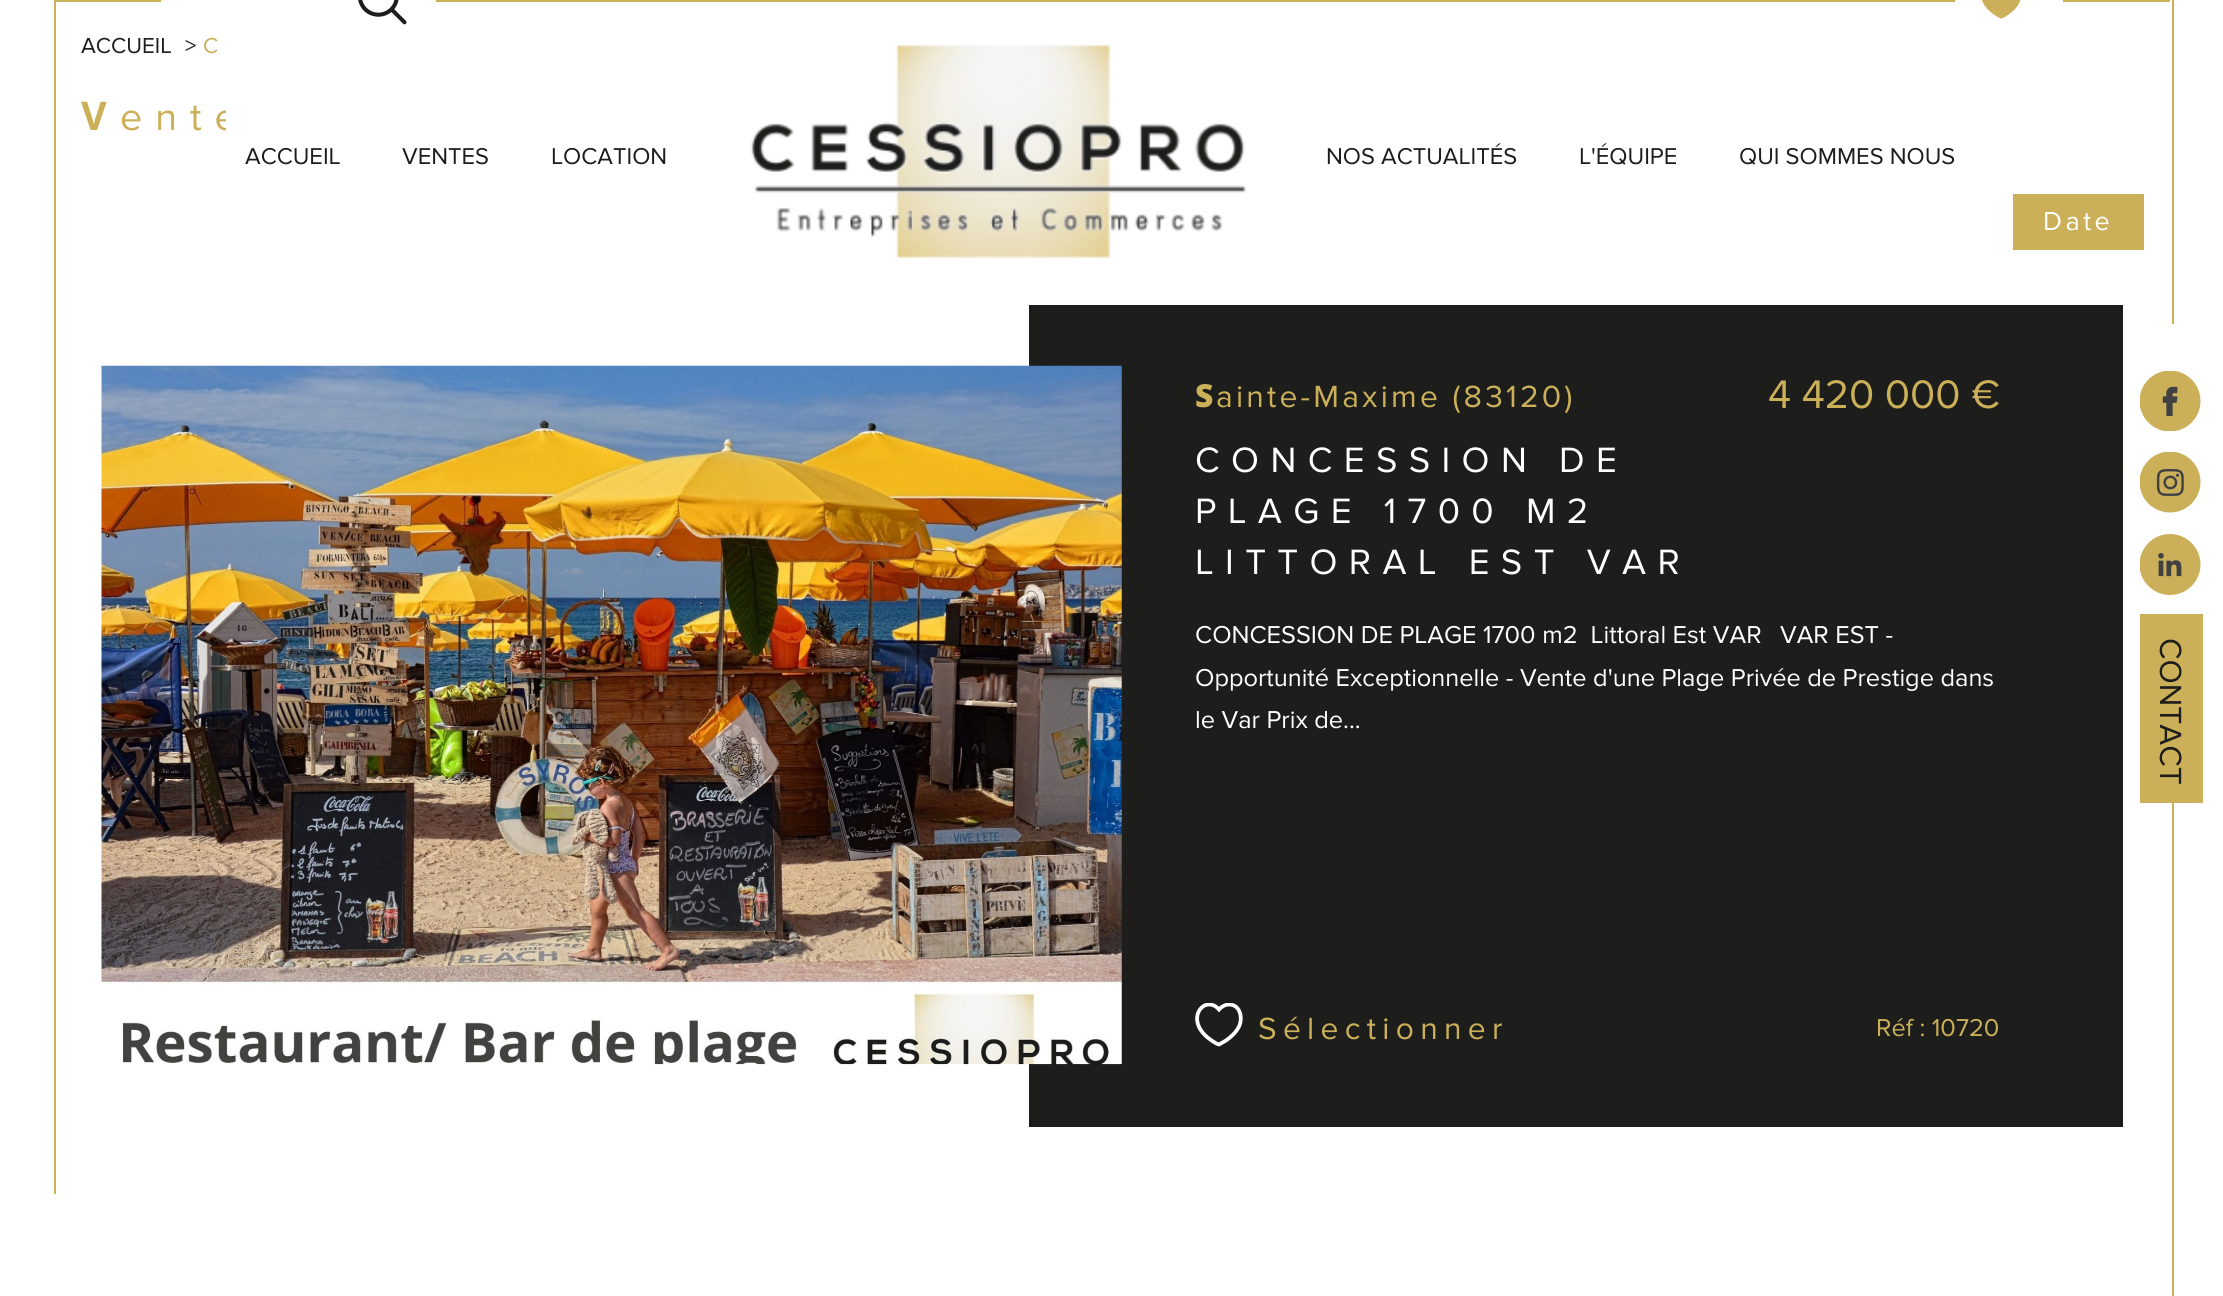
#include <cairo/cairo.h>
#include <math.h>
#include <stddef.h>


static void draw_spaced(cairo_t *cr, double x, double y, const char *s, double letter, double word) {
  cairo_move_to(cr, x, y);
  while (*s) {
    char ch[5] = {0};
    int n = 0;
    do ch[n++] = *s++; while ((*s & 0xC0) == 0x80);
    cairo_show_text(cr, ch);
    cairo_rel_move_to(cr, letter + word * (*ch == ' '), 0);
  }
}

static void draw_image(cairo_t *cr, const char *path, double x, double y, double w, double h) {
  cairo_surface_t *image = cairo_image_surface_create_from_png(path);
  cairo_save(cr);
  cairo_set_source_surface(cr, image, x, y);
  cairo_rectangle(cr, x, y, w, h);
  cairo_fill(cr);
  cairo_restore(cr);
  cairo_surface_destroy(image);
}

static void draw(cairo_t *cr) {
  cairo_set_source_rgb(cr, 1, 1, 1);
  cairo_paint(cr);
  cairo_set_source_rgb(cr, 203 / 255.0, 176 / 255.0, 89 / 255.0);
  cairo_rectangle(cr, 2013, 194, 131, 56);
  cairo_fill(cr);
  cairo_set_source_rgb(cr, 29 / 255.0, 29 / 255.0, 27 / 255.0);
  cairo_rectangle(cr, 1029, 305, 1094, 822);
  cairo_fill(cr);
  draw_image(cr, "images/1.png", 101, 365, 1021, 700);
  cairo_save(cr);
  cairo_rectangle(cr, 1195, 1003, 48, 44);
  cairo_clip(cr);
  cairo_new_path(cr);
  cairo_move_to(cr, 1229, 1004.5);
  cairo_curve_to(cr, 1225.5, 1004.5, 1221.5, 1006.5, 1219, 1009.5);
  cairo_curve_to(cr, 1205.5, 994, 1184.5, 1017.5, 1207, 1037);
  cairo_curve_to(cr, 1209.5, 1039, 1216, 1044, 1219, 1044.5);
  cairo_line_to(cr, 1226, 1040.5);
  cairo_curve_to(cr, 1231, 1037, 1236, 1032.5, 1239, 1026.5);
  cairo_curve_to(cr, 1243, 1018.5, 1240.5, 1004.5, 1229, 1004.5);
  cairo_close_path(cr);
  cairo_set_source_rgb(cr, 1, 1, 1);
  cairo_set_line_width(cr, 3.8);
  cairo_stroke(cr);
  cairo_restore(cr);
  draw_image(cr, "images/2.png", 750, 44, 497, 215);
  cairo_set_source_rgb(cr, 203 / 255.0, 176 / 255.0, 89 / 255.0);
  cairo_rectangle(cr, 54, 0, 2116, 2);
  cairo_fill(cr);
  cairo_set_source_rgb(cr, 1, 1, 1);
  cairo_rectangle(cr, 161, 0, 275, 2);
  cairo_fill(cr);
  draw_image(cr, "images/3.png", 358, 0, 49, 25);
  cairo_rectangle(cr, 1955, 0, 108, 2);
  cairo_fill(cr);
  draw_image(cr, "images/4.png", 1982, 0, 39, 19);
  cairo_set_source_rgb(cr, 203 / 255.0, 176 / 255.0, 89 / 255.0);
  cairo_rectangle(cr, 54, 0, 2, 1194);
  cairo_fill(cr);
  cairo_rectangle(cr, 2172, 0, 2, 324);
  cairo_fill(cr);
  draw_image(cr, "images/5.png", 2140, 371, 61, 60);
  draw_image(cr, "images/6.png", 2140, 452, 61, 61);
  draw_image(cr, "images/7.png", 2140, 534, 61, 61);
  cairo_rectangle(cr, 2140, 614, 63, 189);
  cairo_fill(cr);
  cairo_rectangle(cr, 2172, 803, 2, 493);
  cairo_fill(cr);
  cairo_select_font_face(cr, "Proxima Nova", CAIRO_FONT_SLANT_NORMAL, CAIRO_FONT_WEIGHT_NORMAL);
  cairo_set_font_size(cr, 22.5);
  cairo_set_source_rgb(cr, 29 / 255.0, 29 / 255.0, 27 / 255.0);
  cairo_move_to(cr, 81, 53);
  cairo_show_text(cr, "ACCUEIL");
  cairo_move_to(cr, 185, 53);
  cairo_show_text(cr, ">");
  cairo_set_source_rgb(cr, 203 / 255.0, 176 / 255.0, 89 / 255.0);
  cairo_move_to(cr, 203, 53);
  cairo_show_text(cr, "C");
  cairo_select_font_face(cr, "Noto Sans", CAIRO_FONT_SLANT_NORMAL, CAIRO_FONT_WEIGHT_BOLD);
  cairo_set_font_size(cr, 39.5);
  draw_spaced(cr, 81, 130, "V", 13, 0);
  cairo_select_font_face(cr, "Proxima Nova", CAIRO_FONT_SLANT_NORMAL, CAIRO_FONT_WEIGHT_NORMAL);
  draw_spaced(cr, 120, 130, "ente", 13, 0);
  cairo_set_font_size(cr, 27);
  cairo_set_source_rgb(cr, 1, 1, 1);
  draw_spaced(cr, 2043, 230, "Date", 3.5, 0);
  cairo_select_font_face(cr, "Noto Sans Black", CAIRO_FONT_SLANT_NORMAL, CAIRO_FONT_WEIGHT_NORMAL);
  cairo_set_font_size(cr, 31.75);
  cairo_set_source_rgb(cr, 203 / 255.0, 176 / 255.0, 89 / 255.0);
  draw_spaced(cr, 1195, 407, "S", 3.2, 0);
  cairo_select_font_face(cr, "Proxima Nova", CAIRO_FONT_SLANT_NORMAL, CAIRO_FONT_WEIGHT_NORMAL);
  draw_spaced(cr, 1216, 407, "ainte-Maxime (83120)", 3.2, 0);
  cairo_set_font_size(cr, 36.5);
  cairo_set_source_rgb(cr, 1, 1, 1);
  draw_spaced(cr, 1195, 472, "CONCESSION DE", 11.4, 0);
  draw_spaced(cr, 1195, 523, "PLAGE 1700 M2", 11.4, 0);
  draw_spaced(cr, 1195, 574, "LITTORAL EST VAR", 11.4, 0);
  cairo_set_font_size(cr, 41.25);
  cairo_set_source_rgb(cr, 203 / 255.0, 176 / 255.0, 89 / 255.0);
  cairo_move_to(cr, 1768, 408);
  cairo_show_text(cr, "4 420 000 €");
  cairo_set_font_size(cr, 25.35);
  cairo_set_source_rgb(cr, 1, 1, 1);
  cairo_move_to(cr, 1195, 643);
  cairo_show_text(cr, "CONCESSION DE PLAGE 1700 m2  Littoral Est VAR");
  cairo_move_to(cr, 1780, 643);
  cairo_show_text(cr, "VAR EST -");
  cairo_move_to(cr, 1195, 686);
  cairo_show_text(cr, "Opportunité Exceptionnelle - Vente d'une Plage Privée de Prestige dans");
  cairo_move_to(cr, 1195, 728);
  cairo_show_text(cr, "le Var Prix de...");
  cairo_set_font_size(cr, 31.75);
  cairo_set_source_rgb(cr, 203 / 255.0, 176 / 255.0, 89 / 255.0);
  draw_spaced(cr, 1258, 1039, "Sélectionner", 6.3, 0);
  cairo_set_font_size(cr, 25.35);
  cairo_move_to(cr, 1876, 1036);
  cairo_show_text(cr, "Réf : 10720");
  cairo_set_source_rgb(cr, 1, 1, 1);
  cairo_rectangle(cr, 226, 110, 10, 21);
  cairo_fill(cr);
  cairo_set_font_size(cr, 23.75);
  cairo_set_source_rgb(cr, 29 / 255.0, 29 / 255.0, 27 / 255.0);
  cairo_move_to(cr, 245, 164);
  cairo_show_text(cr, "ACCUEIL");
  cairo_move_to(cr, 402, 164);
  cairo_show_text(cr, "VENTES");
  cairo_move_to(cr, 551, 164);
  cairo_show_text(cr, "LOCATION");
  cairo_move_to(cr, 1326, 164);
  cairo_show_text(cr, "NOS ACTUALITÉS");
  cairo_move_to(cr, 1579, 164);
  cairo_show_text(cr, "L'ÉQUIPE");
  cairo_move_to(cr, 1739, 164);
  cairo_show_text(cr, "QUI SOMMES NOUS");
  cairo_set_font_size(cr, 31.75);
  cairo_save(cr);
  cairo_translate(cr, 2160, 638);
  cairo_rotate(cr, 90 * M_PI / 180);
  cairo_move_to(cr, 0, 0);
  cairo_show_text(cr, "CONTACT");
  cairo_restore(cr);
}

int main(void) {
  cairo_surface_t *surface = cairo_image_surface_create(CAIRO_FORMAT_RGB24, 2223, 1296);
  cairo_t *cr = cairo_create(surface);
  cairo_font_options_t *options = cairo_font_options_create();
  cairo_font_options_set_hint_metrics(options, CAIRO_HINT_METRICS_OFF);
  cairo_font_options_set_hint_style(options, CAIRO_HINT_STYLE_NONE);
  cairo_set_font_options(cr, options);
  cairo_set_miter_limit(cr, 4);
  draw(cr);
  cairo_surface_write_to_png(surface, "out.png");
  cairo_font_options_destroy(options);
  cairo_destroy(cr);
  cairo_surface_destroy(surface);
  return 0;
}
